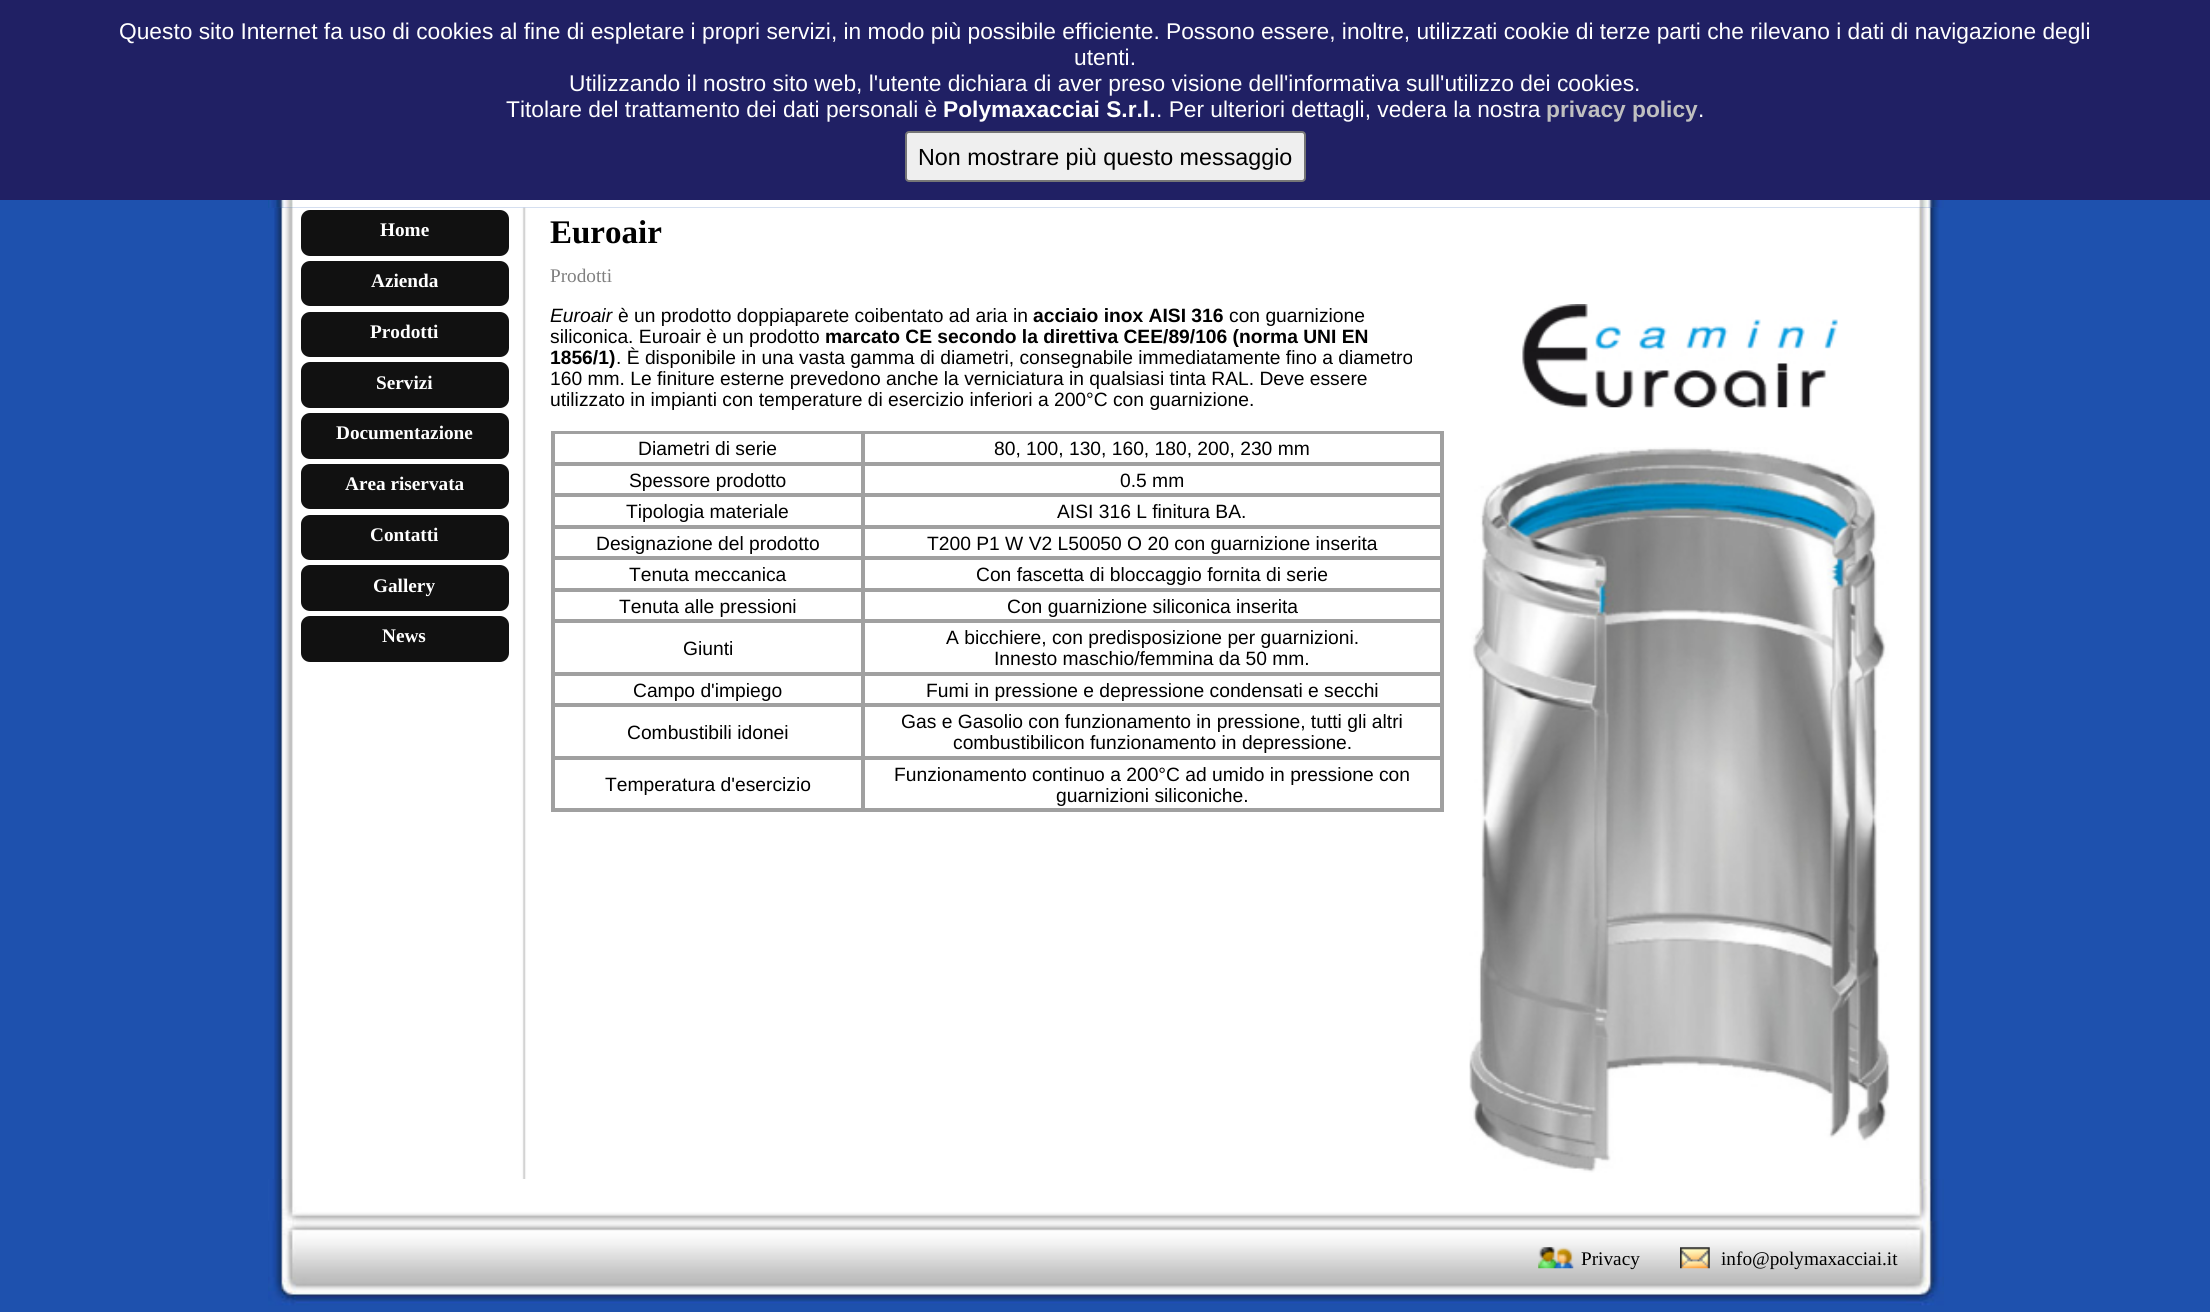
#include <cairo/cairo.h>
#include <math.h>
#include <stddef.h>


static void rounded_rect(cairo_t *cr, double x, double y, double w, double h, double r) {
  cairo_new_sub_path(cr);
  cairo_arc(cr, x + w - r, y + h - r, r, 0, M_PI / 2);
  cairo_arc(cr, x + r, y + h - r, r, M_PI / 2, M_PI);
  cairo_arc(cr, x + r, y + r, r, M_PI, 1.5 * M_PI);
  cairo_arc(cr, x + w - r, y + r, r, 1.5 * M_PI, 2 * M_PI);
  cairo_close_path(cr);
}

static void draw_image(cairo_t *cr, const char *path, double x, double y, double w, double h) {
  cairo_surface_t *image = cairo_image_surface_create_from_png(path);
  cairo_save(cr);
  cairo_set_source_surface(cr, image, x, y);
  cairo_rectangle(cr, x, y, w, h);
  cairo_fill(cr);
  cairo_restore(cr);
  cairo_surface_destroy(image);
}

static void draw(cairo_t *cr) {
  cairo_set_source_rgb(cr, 30 / 255.0, 81 / 255.0, 174 / 255.0);
  cairo_paint(cr);
  cairo_set_source_rgb(cr, 32 / 255.0, 32 / 255.0, 100 / 255.0);
  cairo_rectangle(cr, 0, 0, 2210, 200);
  cairo_fill(cr);
  cairo_set_source_rgb(cr, 239 / 255.0, 239 / 255.0, 239 / 255.0);
  rounded_rect(cr, 906, 132, 399, 49, 3);
  cairo_fill_preserve(cr);
  cairo_set_source_rgb(cr, 118 / 255.0, 118 / 255.0, 118 / 255.0);
  cairo_stroke(cr);
  draw_image(cr, "images/1.png", 268, 200, 1676, 8);
  draw_image(cr, "images/2.png", 274, 207, 1665, 972);
  cairo_set_source_rgb(cr, 17 / 255.0, 17 / 255.0, 17 / 255.0);
  rounded_rect(cr, 302, 211, 206, 44, 8);
  cairo_fill_preserve(cr);
  cairo_stroke(cr);
  rounded_rect(cr, 302, 262, 206, 43, 8);
  cairo_fill_preserve(cr);
  cairo_stroke(cr);
  rounded_rect(cr, 302, 313, 206, 43, 8);
  cairo_fill_preserve(cr);
  cairo_stroke(cr);
  rounded_rect(cr, 302, 363, 206, 44, 8);
  cairo_fill_preserve(cr);
  cairo_stroke(cr);
  rounded_rect(cr, 302, 414, 206, 44, 8);
  cairo_fill_preserve(cr);
  cairo_stroke(cr);
  rounded_rect(cr, 302, 465, 206, 43, 8);
  cairo_fill_preserve(cr);
  cairo_stroke(cr);
  rounded_rect(cr, 302, 516, 206, 43, 8);
  cairo_fill_preserve(cr);
  cairo_stroke(cr);
  rounded_rect(cr, 302, 566, 206, 44, 8);
  cairo_fill_preserve(cr);
  cairo_stroke(cr);
  rounded_rect(cr, 302, 617, 206, 44, 8);
  cairo_fill_preserve(cr);
  cairo_stroke(cr);
  cairo_rectangle(cr, 552, 432, 891, 379);
  cairo_set_source_rgb(cr, 160 / 255.0, 160 / 255.0, 160 / 255.0);
  cairo_stroke(cr);
  cairo_rectangle(cr, 554, 433, 308, 30);
  cairo_stroke(cr);
  cairo_rectangle(cr, 864, 433, 577, 30);
  cairo_stroke(cr);
  cairo_rectangle(cr, 554, 465, 308, 29);
  cairo_stroke(cr);
  cairo_rectangle(cr, 864, 465, 577, 29);
  cairo_stroke(cr);
  cairo_rectangle(cr, 554, 496, 308, 30);
  cairo_stroke(cr);
  cairo_rectangle(cr, 864, 496, 577, 30);
  cairo_stroke(cr);
  cairo_rectangle(cr, 554, 528, 308, 29);
  cairo_stroke(cr);
  cairo_rectangle(cr, 864, 528, 577, 29);
  cairo_stroke(cr);
  cairo_rectangle(cr, 554, 559, 308, 30);
  cairo_stroke(cr);
  cairo_rectangle(cr, 864, 559, 577, 30);
  cairo_stroke(cr);
  cairo_rectangle(cr, 554, 591, 308, 29);
  cairo_stroke(cr);
  cairo_rectangle(cr, 864, 591, 577, 29);
  cairo_stroke(cr);
  cairo_rectangle(cr, 554, 622, 308, 51);
  cairo_stroke(cr);
  cairo_rectangle(cr, 864, 622, 577, 51);
  cairo_stroke(cr);
  cairo_rectangle(cr, 554, 675, 308, 29);
  cairo_stroke(cr);
  cairo_rectangle(cr, 864, 675, 577, 29);
  cairo_stroke(cr);
  cairo_rectangle(cr, 554, 706, 308, 51);
  cairo_stroke(cr);
  cairo_rectangle(cr, 864, 706, 577, 51);
  cairo_stroke(cr);
  cairo_rectangle(cr, 554, 759, 308, 50);
  cairo_stroke(cr);
  cairo_rectangle(cr, 864, 759, 577, 50);
  cairo_stroke(cr);
  draw_image(cr, "images/3.png", 1522, 304, 316, 104);
  draw_image(cr, "images/4.png", 1469, 447, 421, 726);
  draw_image(cr, "images/5.png", 268, 1179, 1676, 133);
  draw_image(cr, "images/6.png", 1538, 1247, 36, 22);
  draw_image(cr, "images/7.png", 1680, 1247, 30, 22);
  cairo_select_font_face(cr, "Liberation Sans", CAIRO_FONT_SLANT_NORMAL, CAIRO_FONT_WEIGHT_NORMAL);
  cairo_set_font_size(cr, 22.75);
  cairo_set_source_rgb(cr, 1, 1, 1);
  cairo_move_to(cr, 119, 39);
  cairo_show_text(cr, "Questo sito Internet fa uso di cookies al fine di espletare i propri servizi, in modo più possibile efficiente. Possono essere, inoltre, utilizzati cookie di terze parti che rilevano i dati di navigazione degli");
  cairo_move_to(cr, 1074, 65);
  cairo_show_text(cr, "utenti.");
  cairo_move_to(cr, 569, 91);
  cairo_show_text(cr, "Utilizzando il nostro sito web, l'utente dichiara di aver preso visione dell'informativa sull'utilizzo dei cookies.");
  cairo_move_to(cr, 506, 117);
  cairo_show_text(cr, "Titolare del trattamento dei dati personali è");
  cairo_select_font_face(cr, "Liberation Sans", CAIRO_FONT_SLANT_NORMAL, CAIRO_FONT_WEIGHT_BOLD);
  cairo_move_to(cr, 943, 117);
  cairo_show_text(cr, "Polymaxacciai S.r.l.");
  cairo_select_font_face(cr, "Liberation Sans", CAIRO_FONT_SLANT_NORMAL, CAIRO_FONT_WEIGHT_NORMAL);
  cairo_move_to(cr, 1156, 117);
  cairo_show_text(cr, ". Per ulteriori dettagli, vedera la nostra");
  cairo_select_font_face(cr, "Liberation Sans", CAIRO_FONT_SLANT_NORMAL, CAIRO_FONT_WEIGHT_BOLD);
  cairo_set_source_rgb(cr, 192 / 255.0, 192 / 255.0, 192 / 255.0);
  cairo_move_to(cr, 1546, 117);
  cairo_show_text(cr, "privacy policy");
  cairo_select_font_face(cr, "Liberation Sans", CAIRO_FONT_SLANT_NORMAL, CAIRO_FONT_WEIGHT_NORMAL);
  cairo_set_source_rgb(cr, 1, 1, 1);
  cairo_move_to(cr, 1698, 117);
  cairo_show_text(cr, ".");
  cairo_set_font_size(cr, 23.3);
  cairo_set_source_rgb(cr, 0, 0, 0);
  cairo_move_to(cr, 918, 165);
  cairo_show_text(cr, "Non mostrare più questo messaggio");
  cairo_select_font_face(cr, "Liberation Serif", CAIRO_FONT_SLANT_NORMAL, CAIRO_FONT_WEIGHT_BOLD);
  cairo_set_font_size(cr, 19.25);
  cairo_set_source_rgb(cr, 1, 1, 1);
  cairo_move_to(cr, 380, 236);
  cairo_show_text(cr, "Home");
  cairo_move_to(cr, 371, 287);
  cairo_show_text(cr, "Azienda");
  cairo_move_to(cr, 370, 338);
  cairo_show_text(cr, "Prodotti");
  cairo_move_to(cr, 376, 389);
  cairo_show_text(cr, "Servizi");
  cairo_move_to(cr, 336, 439);
  cairo_show_text(cr, "Documentazione");
  cairo_move_to(cr, 345, 490);
  cairo_show_text(cr, "Area riservata");
  cairo_move_to(cr, 370, 541);
  cairo_show_text(cr, "Contatti");
  cairo_move_to(cr, 373, 592);
  cairo_show_text(cr, "Gallery");
  cairo_move_to(cr, 382, 642);
  cairo_show_text(cr, "News");
  cairo_set_font_size(cr, 33);
  cairo_set_source_rgb(cr, 0, 0, 0);
  cairo_move_to(cr, 550, 243);
  cairo_show_text(cr, "Euroair");
  cairo_select_font_face(cr, "Liberation Serif", CAIRO_FONT_SLANT_NORMAL, CAIRO_FONT_WEIGHT_NORMAL);
  cairo_set_font_size(cr, 19.25);
  cairo_set_source_rgb(cr, 128 / 255.0, 128 / 255.0, 128 / 255.0);
  cairo_move_to(cr, 550, 282);
  cairo_show_text(cr, "Prodotti");
  cairo_select_font_face(cr, "Liberation Sans", CAIRO_FONT_SLANT_ITALIC, CAIRO_FONT_WEIGHT_NORMAL);
  cairo_set_source_rgb(cr, 0, 0, 0);
  cairo_move_to(cr, 550, 322);
  cairo_show_text(cr, "Euroair");
  cairo_select_font_face(cr, "Liberation Sans", CAIRO_FONT_SLANT_NORMAL, CAIRO_FONT_WEIGHT_NORMAL);
  cairo_move_to(cr, 618, 322);
  cairo_show_text(cr, "è un prodotto doppiaparete coibentato ad aria in");
  cairo_select_font_face(cr, "Liberation Sans", CAIRO_FONT_SLANT_NORMAL, CAIRO_FONT_WEIGHT_BOLD);
  cairo_move_to(cr, 1033, 322);
  cairo_show_text(cr, "acciaio inox AISI 316");
  cairo_select_font_face(cr, "Liberation Sans", CAIRO_FONT_SLANT_NORMAL, CAIRO_FONT_WEIGHT_NORMAL);
  cairo_move_to(cr, 1229, 322);
  cairo_show_text(cr, "con guarnizione");
  cairo_move_to(cr, 550, 343);
  cairo_show_text(cr, "siliconica. Euroair è un prodotto");
  cairo_select_font_face(cr, "Liberation Sans", CAIRO_FONT_SLANT_NORMAL, CAIRO_FONT_WEIGHT_BOLD);
  cairo_move_to(cr, 825, 343);
  cairo_show_text(cr, "marcato CE secondo la direttiva CEE/89/106 (norma UNI EN");
  cairo_move_to(cr, 550, 364);
  cairo_show_text(cr, "1856/1)");
  cairo_select_font_face(cr, "Liberation Sans", CAIRO_FONT_SLANT_NORMAL, CAIRO_FONT_WEIGHT_NORMAL);
  cairo_move_to(cr, 616, 364);
  cairo_show_text(cr, ". È disponibile in una vasta gamma di diametri, consegnabile immediatamente fino a diametro");
  cairo_move_to(cr, 550, 385);
  cairo_show_text(cr, "160 mm. Le finiture esterne prevedono anche la verniciatura in qualsiasi tinta RAL. Deve essere");
  cairo_move_to(cr, 550, 406);
  cairo_show_text(cr, "utilizzato in impianti con temperature di esercizio inferiori a 200°C con guarnizione.");
  cairo_move_to(cr, 638, 455);
  cairo_show_text(cr, "Diametri di serie");
  cairo_move_to(cr, 994, 455);
  cairo_show_text(cr, "80, 100, 130, 160, 180, 200, 230 mm");
  cairo_move_to(cr, 629, 487);
  cairo_show_text(cr, "Spessore prodotto");
  cairo_move_to(cr, 1120, 487);
  cairo_show_text(cr, "0.5 mm");
  cairo_move_to(cr, 626, 518);
  cairo_show_text(cr, "Tipologia materiale");
  cairo_move_to(cr, 1057, 518);
  cairo_show_text(cr, "AISI 316 L finitura BA.");
  cairo_move_to(cr, 596, 550);
  cairo_show_text(cr, "Designazione del prodotto");
  cairo_move_to(cr, 927, 550);
  cairo_show_text(cr, "T200 P1 W V2 L50050 O 20 con guarnizione inserita");
  cairo_move_to(cr, 629, 581);
  cairo_show_text(cr, "Tenuta meccanica");
  cairo_move_to(cr, 976, 581);
  cairo_show_text(cr, "Con fascetta di bloccaggio fornita di serie");
  cairo_move_to(cr, 619, 613);
  cairo_show_text(cr, "Tenuta alle pressioni");
  cairo_move_to(cr, 1007, 613);
  cairo_show_text(cr, "Con guarnizione siliconica inserita");
  cairo_move_to(cr, 683, 655);
  cairo_show_text(cr, "Giunti");
  cairo_move_to(cr, 946, 644);
  cairo_show_text(cr, "A bicchiere, con predisposizione per guarnizioni.");
  cairo_move_to(cr, 994, 665);
  cairo_show_text(cr, "Innesto maschio/femmina da 50 mm.");
  cairo_move_to(cr, 633, 697);
  cairo_show_text(cr, "Campo d'impiego");
  cairo_move_to(cr, 926, 697);
  cairo_show_text(cr, "Fumi in pressione e depressione condensati e secchi");
  cairo_move_to(cr, 627, 739);
  cairo_show_text(cr, "Combustibili idonei");
  cairo_move_to(cr, 901, 728);
  cairo_show_text(cr, "Gas e Gasolio con funzionamento in pressione, tutti gli altri");
  cairo_move_to(cr, 953, 749);
  cairo_show_text(cr, "combustibilicon funzionamento in depressione.");
  cairo_move_to(cr, 605, 791);
  cairo_show_text(cr, "Temperatura d'esercizio");
  cairo_move_to(cr, 894, 781);
  cairo_show_text(cr, "Funzionamento continuo a 200°C ad umido in pressione con");
  cairo_move_to(cr, 1056, 802);
  cairo_show_text(cr, "guarnizioni siliconiche.");
  cairo_select_font_face(cr, "Liberation Serif", CAIRO_FONT_SLANT_NORMAL, CAIRO_FONT_WEIGHT_NORMAL);
  cairo_move_to(cr, 1581, 1265);
  cairo_show_text(cr, "Privacy");
  cairo_move_to(cr, 1721, 1265);
  cairo_show_text(cr, "info@polymaxacciai.it");
}

int main(void) {
  cairo_surface_t *surface = cairo_image_surface_create(CAIRO_FORMAT_RGB24, 2210, 1312);
  cairo_t *cr = cairo_create(surface);
  cairo_font_options_t *options = cairo_font_options_create();
  cairo_font_options_set_hint_metrics(options, CAIRO_HINT_METRICS_OFF);
  cairo_font_options_set_hint_style(options, CAIRO_HINT_STYLE_NONE);
  cairo_set_font_options(cr, options);
  cairo_set_miter_limit(cr, 4);
  draw(cr);
  cairo_surface_write_to_png(surface, "out.png");
  cairo_font_options_destroy(options);
  cairo_destroy(cr);
  cairo_surface_destroy(surface);
  return 0;
}
